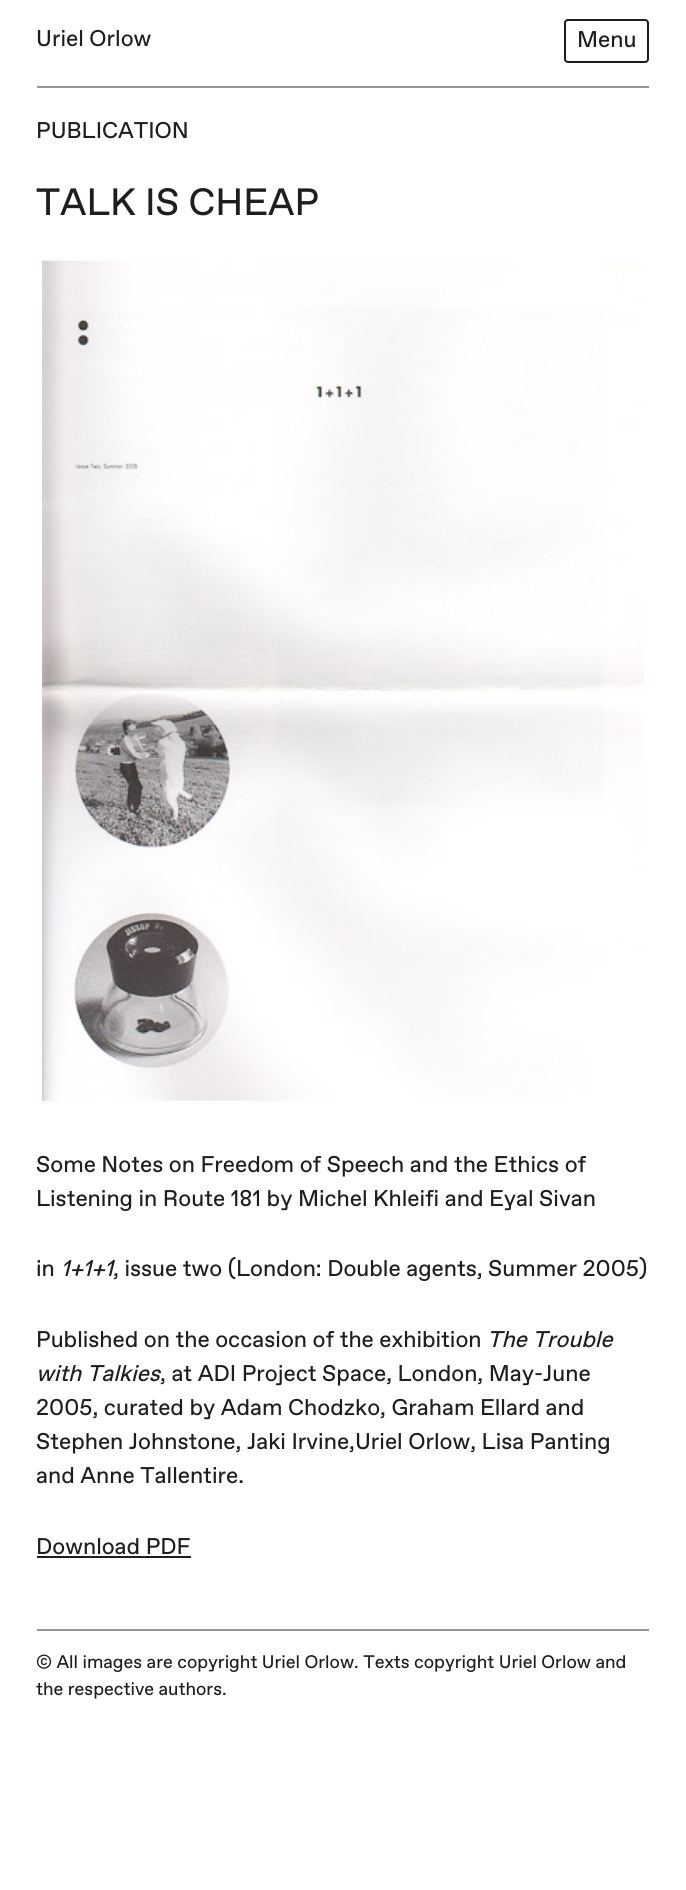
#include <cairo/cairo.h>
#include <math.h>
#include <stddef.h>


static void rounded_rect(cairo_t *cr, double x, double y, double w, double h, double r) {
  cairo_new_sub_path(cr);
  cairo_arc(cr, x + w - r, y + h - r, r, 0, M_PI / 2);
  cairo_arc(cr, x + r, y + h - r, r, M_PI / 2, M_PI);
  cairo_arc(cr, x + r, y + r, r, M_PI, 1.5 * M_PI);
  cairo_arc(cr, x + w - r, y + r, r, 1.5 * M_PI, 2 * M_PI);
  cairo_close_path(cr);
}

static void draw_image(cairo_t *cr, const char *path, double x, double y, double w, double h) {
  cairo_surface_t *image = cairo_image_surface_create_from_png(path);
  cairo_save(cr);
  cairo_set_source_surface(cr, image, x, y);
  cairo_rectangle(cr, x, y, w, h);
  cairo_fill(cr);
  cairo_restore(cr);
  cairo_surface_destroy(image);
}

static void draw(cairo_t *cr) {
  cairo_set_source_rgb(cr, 1, 1, 1);
  cairo_paint(cr);
  rounded_rect(cr, 565, 20, 83, 42, 3);
  cairo_set_source_rgb(cr, 30 / 255.0, 30 / 255.0, 30 / 255.0);
  cairo_stroke(cr);
  cairo_set_source_rgb(cr, 151 / 255.0, 151 / 255.0, 151 / 255.0);
  cairo_rectangle(cr, 37, 86, 612, 2);
  cairo_fill(cr);
  draw_image(cr, "images/1.png", 42, 260, 602, 841);
  cairo_set_source_rgb(cr, 30 / 255.0, 30 / 255.0, 30 / 255.0);
  cairo_rectangle(cr, 37, 1556, 154, 2);
  cairo_fill(cr);
  cairo_set_source_rgb(cr, 151 / 255.0, 151 / 255.0, 151 / 255.0);
  cairo_rectangle(cr, 37, 1629, 612, 2);
  cairo_fill(cr);
  cairo_select_font_face(cr, "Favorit", CAIRO_FONT_SLANT_NORMAL, CAIRO_FONT_WEIGHT_NORMAL);
  cairo_set_font_size(cr, 22.75);
  cairo_set_source_rgb(cr, 30 / 255.0, 30 / 255.0, 30 / 255.0);
  cairo_move_to(cr, 36, 46);
  cairo_show_text(cr, "Uriel Orlow");
  cairo_move_to(cr, 577, 47);
  cairo_show_text(cr, "Menu");
  cairo_move_to(cr, 36, 138);
  cairo_show_text(cr, "PUBLICATION");
  cairo_set_font_size(cr, 38);
  cairo_move_to(cr, 36, 215);
  cairo_show_text(cr, "TALK IS CHEAP");
  cairo_set_font_size(cr, 22.75);
  cairo_move_to(cr, 36, 1172);
  cairo_show_text(cr, "Some Notes on Freedom of Speech and the Ethics of");
  cairo_move_to(cr, 36, 1206);
  cairo_show_text(cr, "Listening in Route 181 by Michel Khleifi and Eyal Sivan");
  cairo_move_to(cr, 36, 1276);
  cairo_show_text(cr, "in");
  cairo_select_font_face(cr, "Favorit", CAIRO_FONT_SLANT_ITALIC, CAIRO_FONT_WEIGHT_NORMAL);
  cairo_move_to(cr, 61, 1276);
  cairo_show_text(cr, "1+1+1");
  cairo_select_font_face(cr, "Favorit", CAIRO_FONT_SLANT_NORMAL, CAIRO_FONT_WEIGHT_NORMAL);
  cairo_move_to(cr, 113, 1276);
  cairo_show_text(cr, ", issue two (London: Double agents, Summer 2005)");
  cairo_move_to(cr, 36, 1347);
  cairo_show_text(cr, "Published on the occasion of the exhibition");
  cairo_select_font_face(cr, "Favorit", CAIRO_FONT_SLANT_ITALIC, CAIRO_FONT_WEIGHT_NORMAL);
  cairo_move_to(cr, 487, 1347);
  cairo_show_text(cr, "The Trouble");
  cairo_move_to(cr, 36, 1381);
  cairo_show_text(cr, "with Talkies");
  cairo_select_font_face(cr, "Favorit", CAIRO_FONT_SLANT_NORMAL, CAIRO_FONT_WEIGHT_NORMAL);
  cairo_move_to(cr, 160, 1381);
  cairo_show_text(cr, ", at ADI Project Space, London, May-June");
  cairo_move_to(cr, 36, 1415);
  cairo_show_text(cr, "2005, curated by Adam Chodzko, Graham Ellard and");
  cairo_move_to(cr, 36, 1449);
  cairo_show_text(cr, "Stephen Johnstone, Jaki Irvine,Uriel Orlow, Lisa Panting");
  cairo_move_to(cr, 36, 1483);
  cairo_show_text(cr, "and Anne Tallentire.");
  cairo_move_to(cr, 36, 1554);
  cairo_show_text(cr, "Download PDF");
  cairo_set_font_size(cr, 18.2);
  cairo_move_to(cr, 36, 1668);
  cairo_show_text(cr, "© All images are copyright Uriel Orlow. Texts copyright Uriel Orlow and");
  cairo_move_to(cr, 36, 1695);
  cairo_show_text(cr, "the respective authors.");
}

int main(void) {
  cairo_surface_t *surface = cairo_image_surface_create(CAIRO_FORMAT_RGB24, 686, 1890);
  cairo_t *cr = cairo_create(surface);
  cairo_font_options_t *options = cairo_font_options_create();
  cairo_font_options_set_hint_metrics(options, CAIRO_HINT_METRICS_OFF);
  cairo_font_options_set_hint_style(options, CAIRO_HINT_STYLE_NONE);
  cairo_set_font_options(cr, options);
  cairo_set_miter_limit(cr, 4);
  draw(cr);
  cairo_surface_write_to_png(surface, "out.png");
  cairo_font_options_destroy(options);
  cairo_destroy(cr);
  cairo_surface_destroy(surface);
  return 0;
}
